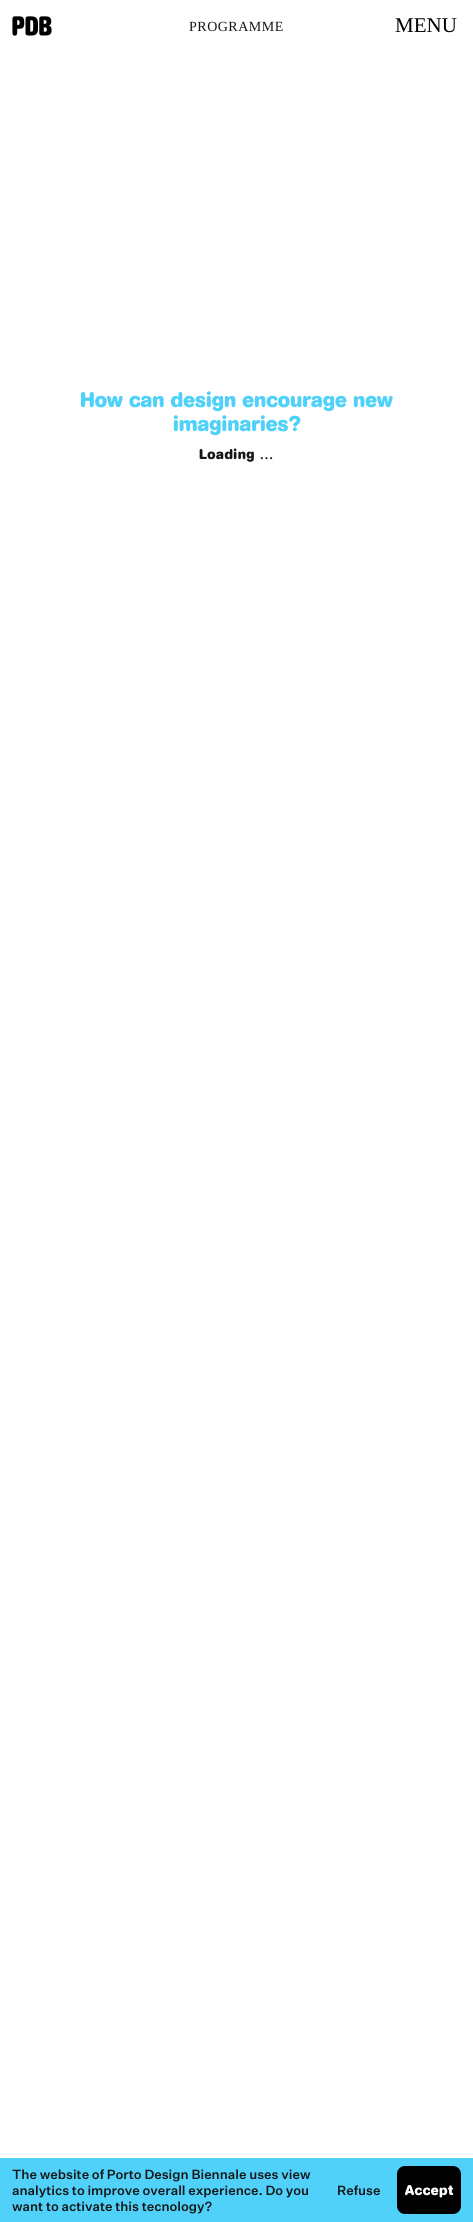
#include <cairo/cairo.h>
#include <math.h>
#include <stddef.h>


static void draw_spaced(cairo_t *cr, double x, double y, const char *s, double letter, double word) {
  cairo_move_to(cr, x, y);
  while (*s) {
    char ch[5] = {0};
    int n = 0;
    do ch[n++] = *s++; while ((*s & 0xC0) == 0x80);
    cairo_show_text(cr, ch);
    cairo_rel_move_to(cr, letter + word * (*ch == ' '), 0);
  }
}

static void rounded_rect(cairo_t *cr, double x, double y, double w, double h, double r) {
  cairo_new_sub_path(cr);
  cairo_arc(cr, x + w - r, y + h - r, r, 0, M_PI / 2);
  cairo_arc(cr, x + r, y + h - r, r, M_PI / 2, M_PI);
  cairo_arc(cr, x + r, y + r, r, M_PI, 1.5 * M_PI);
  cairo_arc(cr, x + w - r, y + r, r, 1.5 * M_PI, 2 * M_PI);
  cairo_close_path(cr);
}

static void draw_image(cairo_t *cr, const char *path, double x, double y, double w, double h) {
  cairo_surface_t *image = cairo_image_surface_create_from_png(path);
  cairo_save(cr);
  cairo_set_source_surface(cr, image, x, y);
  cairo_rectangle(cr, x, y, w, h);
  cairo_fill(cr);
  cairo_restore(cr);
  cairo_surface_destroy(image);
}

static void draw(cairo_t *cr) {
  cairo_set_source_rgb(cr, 1, 1, 1);
  cairo_paint(cr);
  draw_image(cr, "images/1.png", 12, 16, 40, 20);
  cairo_set_source_rgb(cr, 79 / 255.0, 209 / 255.0, 250 / 255.0);
  cairo_rectangle(cr, 0, 2158, 473, 64);
  cairo_fill(cr);
  cairo_set_source_rgb(cr, 0, 0, 0);
  rounded_rect(cr, 397, 2166, 64, 48, 8);
  cairo_fill(cr);
  cairo_select_font_face(cr, "Liberation Serif", CAIRO_FONT_SLANT_NORMAL, CAIRO_FONT_WEIGHT_NORMAL);
  cairo_set_font_size(cr, 14);
  cairo_set_source_rgb(cr, 22 / 255.0, 22 / 255.0, 22 / 255.0);
  draw_spaced(cr, 189, 31, "PROGRAMME", 0.5, 0);
  cairo_set_font_size(cr, 21);
  cairo_set_source_rgb(cr, 0, 0, 0);
  cairo_move_to(cr, 395, 32);
  cairo_show_text(cr, "MENU");
  cairo_select_font_face(cr, "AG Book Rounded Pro", CAIRO_FONT_SLANT_NORMAL, CAIRO_FONT_WEIGHT_BOLD);
  cairo_set_source_rgb(cr, 79 / 255.0, 209 / 255.0, 250 / 255.0);
  cairo_move_to(cr, 80, 407);
  cairo_show_text(cr, "How can design encourage new");
  cairo_move_to(cr, 173, 431);
  cairo_show_text(cr, "imaginaries?");
  cairo_set_font_size(cr, 14);
  cairo_set_source_rgb(cr, 22 / 255.0, 22 / 255.0, 22 / 255.0);
  draw_spaced(cr, 199, 459, "Loading …", 0.5, 0);
  cairo_select_font_face(cr, "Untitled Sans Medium", CAIRO_FONT_SLANT_NORMAL, CAIRO_FONT_WEIGHT_NORMAL);
  cairo_set_font_size(cr, 13);
  cairo_move_to(cr, 12, 2179);
  cairo_show_text(cr, "The website of Porto Design Biennale uses view");
  cairo_move_to(cr, 12, 2195);
  cairo_show_text(cr, "analytics to improve overall experience. Do you");
  cairo_move_to(cr, 12, 2211);
  cairo_show_text(cr, "want to activate this tecnology?");
  cairo_move_to(cr, 337, 2195);
  cairo_show_text(cr, "Refuse");
  cairo_select_font_face(cr, "AG Book Rounded Pro", CAIRO_FONT_SLANT_NORMAL, CAIRO_FONT_WEIGHT_BOLD);
  cairo_set_font_size(cr, 14);
  cairo_set_source_rgb(cr, 1, 1, 1);
  draw_spaced(cr, 405, 2195, "Accept", 0.5, 0);
}

int main(void) {
  cairo_surface_t *surface = cairo_image_surface_create(CAIRO_FORMAT_RGB24, 473, 2222);
  cairo_t *cr = cairo_create(surface);
  cairo_font_options_t *options = cairo_font_options_create();
  cairo_font_options_set_hint_metrics(options, CAIRO_HINT_METRICS_OFF);
  cairo_font_options_set_hint_style(options, CAIRO_HINT_STYLE_NONE);
  cairo_set_font_options(cr, options);
  cairo_set_miter_limit(cr, 4);
  draw(cr);
  cairo_surface_write_to_png(surface, "out.png");
  cairo_font_options_destroy(options);
  cairo_destroy(cr);
  cairo_surface_destroy(surface);
  return 0;
}
